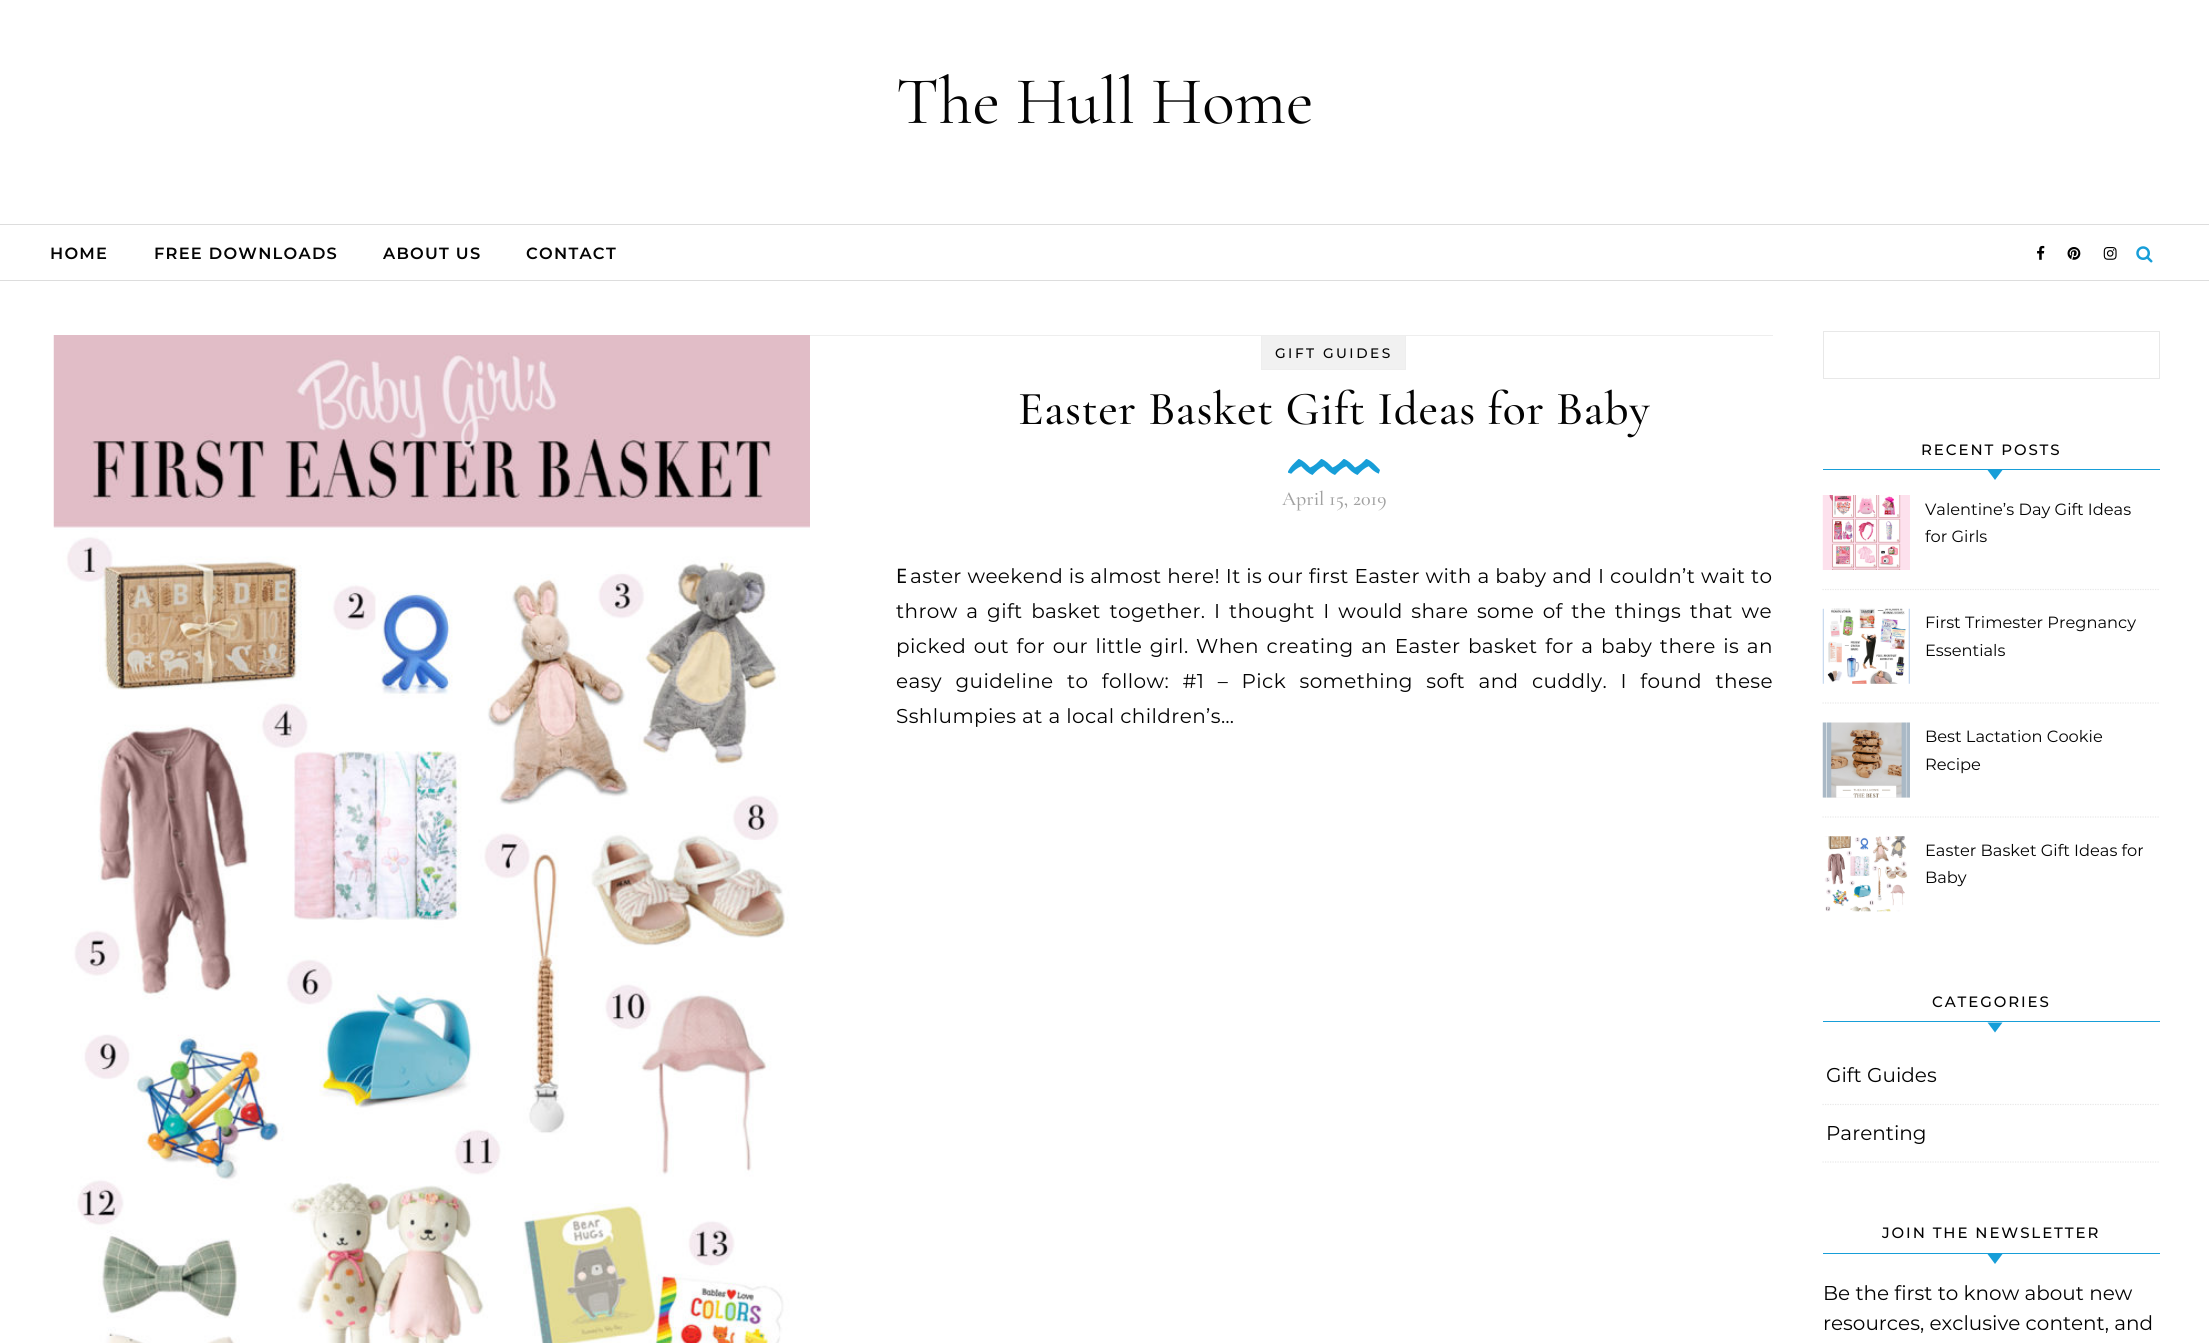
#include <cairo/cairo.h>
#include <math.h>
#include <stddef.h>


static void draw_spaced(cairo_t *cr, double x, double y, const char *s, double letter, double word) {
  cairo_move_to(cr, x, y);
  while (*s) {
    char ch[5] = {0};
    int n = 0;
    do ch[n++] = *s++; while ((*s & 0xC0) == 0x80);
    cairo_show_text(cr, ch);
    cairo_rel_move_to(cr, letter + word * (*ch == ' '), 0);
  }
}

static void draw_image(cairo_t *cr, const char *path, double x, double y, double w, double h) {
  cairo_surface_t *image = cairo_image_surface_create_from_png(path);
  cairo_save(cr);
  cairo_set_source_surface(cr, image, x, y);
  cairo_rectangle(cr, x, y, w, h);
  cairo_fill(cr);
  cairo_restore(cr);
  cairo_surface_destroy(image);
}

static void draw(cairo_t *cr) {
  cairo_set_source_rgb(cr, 1, 1, 1);
  cairo_paint(cr);
  cairo_set_source_rgb(cr, 221 / 255.0, 221 / 255.0, 221 / 255.0);
  cairo_rectangle(cr, 0, 224, 2209, 1);
  cairo_fill(cr);
  cairo_rectangle(cr, 0, 280, 2209, 1);
  cairo_fill(cr);
  draw_image(cr, "images/1.png", 2037, 245, 8, 15);
  draw_image(cr, "images/2.png", 2067, 247, 14, 13);
  draw_image(cr, "images/3.png", 2103, 247, 14, 13);
  draw_image(cr, "images/4.png", 2136, 246, 17, 17);
  cairo_set_source_rgb(cr, 238 / 255.0, 238 / 255.0, 238 / 255.0);
  cairo_rectangle(cr, 810, 335, 963, 1);
  cairo_fill(cr);
  draw_image(cr, "images/5.png", 53, 335, 757, 1008);
  cairo_set_source_rgb(cr, 241 / 255.0, 241 / 255.0, 241 / 255.0);
  cairo_rectangle(cr, 1261.5, 335.5, 144, 34);
  cairo_fill_preserve(cr);
  cairo_set_source_rgb(cr, 238 / 255.0, 238 / 255.0, 238 / 255.0);
  cairo_set_line_width(cr, 1);
  cairo_stroke(cr);
  draw_image(cr, "images/6.png", 1288, 459, 92, 16);
  cairo_rectangle(cr, 1823.5, 331.5, 336, 47);
  cairo_set_source_rgb(cr, 232 / 255.0, 232 / 255.0, 232 / 255.0);
  cairo_stroke(cr);
  cairo_set_source_rgb(cr, 23 / 255.0, 158 / 255.0, 216 / 255.0);
  cairo_rectangle(cr, 1823, 469, 337, 1);
  cairo_fill(cr);
  cairo_new_path(cr);
  cairo_move_to(cr, 1987.5, 470);
  cairo_line_to(cr, 2002.5, 470);
  cairo_line_to(cr, 1995, 480);
  cairo_close_path(cr);
  cairo_fill(cr);
  cairo_new_path(cr);
  cairo_move_to(cr, 1822.5, 589.5);
  cairo_line_to(cr, 2160, 589.5);
  cairo_set_source_rgb(cr, 232 / 255.0, 232 / 255.0, 232 / 255.0);
  cairo_set_line_width(cr, 1.2);
  cairo_set_dash(cr, (double[]){1.25, 1.25}, 2, 0);
  cairo_stroke(cr);
  draw_image(cr, "images/7.png", 1822, 495, 88, 75);
  cairo_new_path(cr);
  cairo_move_to(cr, 1822.5, 703);
  cairo_line_to(cr, 2160, 703);
  cairo_stroke(cr);
  draw_image(cr, "images/8.png", 1822, 608, 88, 76);
  cairo_new_path(cr);
  cairo_move_to(cr, 1822.5, 817);
  cairo_line_to(cr, 2160, 817);
  cairo_stroke(cr);
  cairo_set_source_rgb(cr, 242 / 255.0, 242 / 255.0, 242 / 255.0);
  cairo_rectangle(cr, 1823, 797, 87, 1);
  cairo_fill(cr);
  draw_image(cr, "images/9.png", 1822, 722, 88, 76);
  draw_image(cr, "images/10.png", 1823, 836, 87, 76);
  cairo_set_source_rgb(cr, 23 / 255.0, 158 / 255.0, 216 / 255.0);
  cairo_rectangle(cr, 1823, 1021, 337, 1);
  cairo_fill(cr);
  cairo_new_path(cr);
  cairo_move_to(cr, 1987.5, 1022.5);
  cairo_line_to(cr, 2002.5, 1022.5);
  cairo_line_to(cr, 1995, 1032.5);
  cairo_close_path(cr);
  cairo_fill(cr);
  cairo_new_path(cr);
  cairo_move_to(cr, 1822.5, 1104.5);
  cairo_line_to(cr, 2160, 1104.5);
  cairo_set_source_rgb(cr, 232 / 255.0, 232 / 255.0, 232 / 255.0);
  cairo_stroke(cr);
  cairo_new_path(cr);
  cairo_move_to(cr, 1822.5, 1162);
  cairo_line_to(cr, 2160, 1162);
  cairo_stroke(cr);
  cairo_set_source_rgb(cr, 23 / 255.0, 158 / 255.0, 216 / 255.0);
  cairo_rectangle(cr, 1823, 1253, 337, 1);
  cairo_fill(cr);
  cairo_new_path(cr);
  cairo_move_to(cr, 1987.5, 1254);
  cairo_line_to(cr, 2002.5, 1254);
  cairo_line_to(cr, 1995, 1264);
  cairo_close_path(cr);
  cairo_fill(cr);
  cairo_select_font_face(cr, "Cormorant Garamond", CAIRO_FONT_SLANT_NORMAL, CAIRO_FONT_WEIGHT_NORMAL);
  cairo_set_font_size(cr, 67.5);
  cairo_set_source_rgb(cr, 3 / 255.0, 3 / 255.0, 3 / 255.0);
  cairo_move_to(cr, 896, 123);
  cairo_show_text(cr, "The Hull Home");
  cairo_select_font_face(cr, "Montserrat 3 Thin", CAIRO_FONT_SLANT_NORMAL, CAIRO_FONT_WEIGHT_NORMAL);
  cairo_set_font_size(cr, 16.25);
  draw_spaced(cr, 50, 259, "HOME", 1.25, 0);
  draw_spaced(cr, 154, 259, "FREE DOWNLOADS", 1.25, 0);
  draw_spaced(cr, 383, 259, "ABOUT US", 1.25, 0);
  draw_spaced(cr, 526, 259, "CONTACT", 1.25, 0);
  cairo_select_font_face(cr, "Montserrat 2 Thin", CAIRO_FONT_SLANT_NORMAL, CAIRO_FONT_WEIGHT_NORMAL);
  cairo_set_font_size(cr, 13.75);
  draw_spaced(cr, 1275, 358, "GIFT GUIDES", 2.5, 0);
  cairo_select_font_face(cr, "Cormorant Garamond Medium", CAIRO_FONT_SLANT_NORMAL, CAIRO_FONT_WEIGHT_NORMAL);
  cairo_set_font_size(cr, 47.5);
  draw_spaced(cr, 1018, 424, "Easter Basket Gift Ideas for Baby", 0.6, 0);
  cairo_set_font_size(cr, 20);
  cairo_set_source_rgb(cr, 161 / 255.0, 161 / 255.0, 161 / 255.0);
  cairo_move_to(cr, 1282, 505);
  cairo_show_text(cr, "April 15, 2019");
  cairo_select_font_face(cr, "Noto Sans", CAIRO_FONT_SLANT_NORMAL, CAIRO_FONT_WEIGHT_NORMAL);
  cairo_set_source_rgb(cr, 3 / 255.0, 3 / 255.0, 3 / 255.0);
  draw_spaced(cr, 896, 583, "E", 0.4, 0);
  cairo_select_font_face(cr, "Montserrat Thin", CAIRO_FONT_SLANT_NORMAL, CAIRO_FONT_WEIGHT_NORMAL);
  draw_spaced(cr, 910, 583, "aster weekend is almost here! It is our first Easter with a baby and I couldn’t wait to", 0.4, 0);
  draw_spaced(cr, 896, 618, "throw a gift basket together. I thought I would share some of the things that we", 0.4, 2.9);
  draw_spaced(cr, 896, 653, "picked out for our little girl. When creating an Easter basket for a baby there is an", 0.4, 1.9);
  draw_spaced(cr, 896, 688, "easy guideline to follow: #1 – Pick something soft and cuddly. I found these", 0.4, 7.75);
  draw_spaced(cr, 896, 723, "Sshlumpies at a local children’s…", 0.4, 0);
  cairo_select_font_face(cr, "Montserrat 2 Thin", CAIRO_FONT_SLANT_NORMAL, CAIRO_FONT_WEIGHT_NORMAL);
  cairo_set_font_size(cr, 15);
  draw_spaced(cr, 1921, 455, "RECENT POSTS", 1.9, 0);
  cairo_select_font_face(cr, "Montserrat Thin", CAIRO_FONT_SLANT_NORMAL, CAIRO_FONT_WEIGHT_NORMAL);
  cairo_set_font_size(cr, 16.25);
  cairo_move_to(cr, 1925, 515);
  cairo_show_text(cr, "Valentine’s Day Gift Ideas");
  cairo_move_to(cr, 1925, 542);
  cairo_show_text(cr, "for Girls");
  cairo_move_to(cr, 1925, 628);
  cairo_show_text(cr, "First Trimester Pregnancy");
  cairo_move_to(cr, 1925, 656);
  cairo_show_text(cr, "Essentials");
  cairo_move_to(cr, 1925, 742);
  cairo_show_text(cr, "Best Lactation Cookie");
  cairo_move_to(cr, 1925, 770);
  cairo_show_text(cr, "Recipe");
  cairo_move_to(cr, 1925, 856);
  cairo_show_text(cr, "Easter Basket Gift Ideas for");
  cairo_move_to(cr, 1925, 883);
  cairo_show_text(cr, "Baby");
  cairo_select_font_face(cr, "Montserrat 2 Thin", CAIRO_FONT_SLANT_NORMAL, CAIRO_FONT_WEIGHT_NORMAL);
  cairo_set_font_size(cr, 15);
  draw_spaced(cr, 1932, 1007, "CATEGORIES", 1.9, 0);
  cairo_select_font_face(cr, "Montserrat Thin", CAIRO_FONT_SLANT_NORMAL, CAIRO_FONT_WEIGHT_NORMAL);
  cairo_set_font_size(cr, 20);
  cairo_move_to(cr, 1826, 1082);
  cairo_show_text(cr, "Gift Guides");
  cairo_move_to(cr, 1826, 1140);
  cairo_show_text(cr, "Parenting");
  cairo_select_font_face(cr, "Montserrat 2 Thin", CAIRO_FONT_SLANT_NORMAL, CAIRO_FONT_WEIGHT_NORMAL);
  cairo_set_font_size(cr, 15);
  draw_spaced(cr, 1882, 1238, "JOIN THE NEWSLETTER", 1.9, 0);
  cairo_select_font_face(cr, "Montserrat Thin", CAIRO_FONT_SLANT_NORMAL, CAIRO_FONT_WEIGHT_NORMAL);
  cairo_set_font_size(cr, 20);
  cairo_move_to(cr, 1823, 1300);
  cairo_show_text(cr, "Be the first to know about new");
  cairo_move_to(cr, 1823, 1330);
  cairo_show_text(cr, "resources, exclusive content, and");
}

int main(void) {
  cairo_surface_t *surface = cairo_image_surface_create(CAIRO_FORMAT_RGB24, 2209, 1343);
  cairo_t *cr = cairo_create(surface);
  cairo_font_options_t *options = cairo_font_options_create();
  cairo_font_options_set_hint_metrics(options, CAIRO_HINT_METRICS_OFF);
  cairo_font_options_set_hint_style(options, CAIRO_HINT_STYLE_NONE);
  cairo_set_font_options(cr, options);
  cairo_set_miter_limit(cr, 4);
  draw(cr);
  cairo_surface_write_to_png(surface, "out.png");
  cairo_font_options_destroy(options);
  cairo_destroy(cr);
  cairo_surface_destroy(surface);
  return 0;
}
